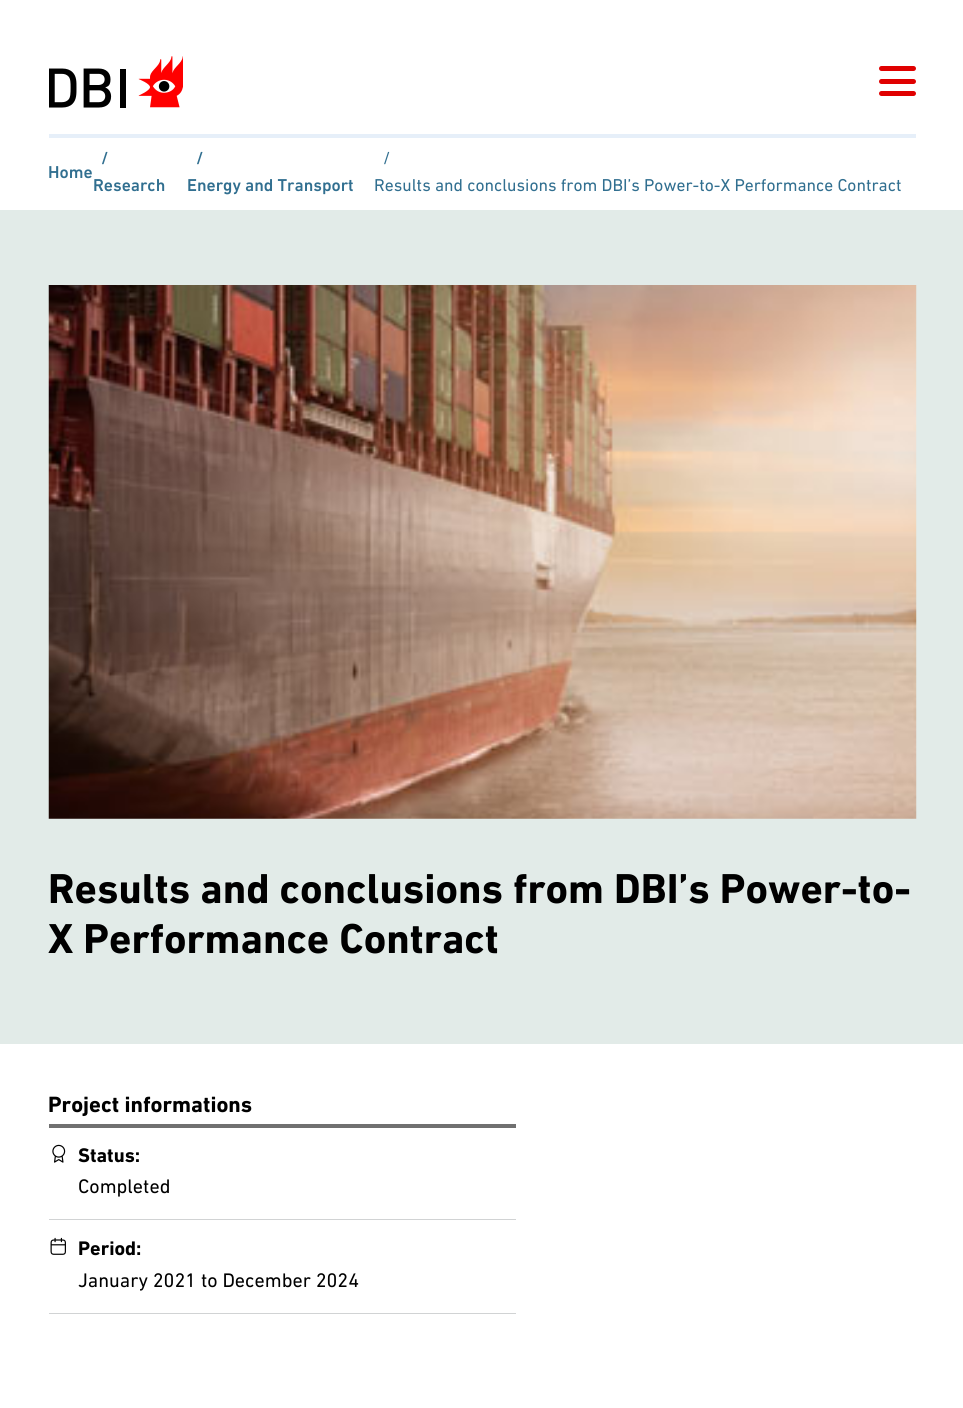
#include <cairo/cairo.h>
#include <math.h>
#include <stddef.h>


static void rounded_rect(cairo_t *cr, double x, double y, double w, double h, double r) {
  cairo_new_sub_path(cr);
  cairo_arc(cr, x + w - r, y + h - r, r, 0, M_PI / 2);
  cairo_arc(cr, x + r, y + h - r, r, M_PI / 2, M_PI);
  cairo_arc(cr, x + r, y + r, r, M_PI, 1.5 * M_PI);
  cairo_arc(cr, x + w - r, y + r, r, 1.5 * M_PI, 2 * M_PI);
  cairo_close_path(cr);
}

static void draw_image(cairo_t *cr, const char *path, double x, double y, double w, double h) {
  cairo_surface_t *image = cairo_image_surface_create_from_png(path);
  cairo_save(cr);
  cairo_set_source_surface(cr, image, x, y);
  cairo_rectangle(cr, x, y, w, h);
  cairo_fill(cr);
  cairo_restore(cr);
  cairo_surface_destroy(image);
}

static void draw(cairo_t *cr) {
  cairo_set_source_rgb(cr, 1, 1, 1);
  cairo_paint(cr);
  draw_image(cr, "images/1.png", 49, 56, 134, 52);
  cairo_set_source_rgb(cr, 224 / 255.0, 0, 0);
  rounded_rect(cr, 879, 66, 37, 5, 2.5);
  cairo_fill(cr);
  rounded_rect(cr, 879, 79, 37, 5, 2.5);
  cairo_fill(cr);
  rounded_rect(cr, 879, 91, 37, 5, 2.5);
  cairo_fill(cr);
  cairo_set_source_rgb(cr, 230 / 255.0, 239 / 255.0, 249 / 255.0);
  cairo_rectangle(cr, 49, 134, 867, 4);
  cairo_fill(cr);
  cairo_set_source_rgb(cr, 226 / 255.0, 235 / 255.0, 232 / 255.0);
  cairo_rectangle(cr, 0, 210, 963, 834);
  cairo_fill(cr);
  draw_image(cr, "images/2.png", 48, 285, 869, 534);
  cairo_set_source_rgb(cr, 112 / 255.0, 112 / 255.0, 112 / 255.0);
  cairo_rectangle(cr, 49, 1124, 467, 4);
  cairo_fill(cr);
  draw_image(cr, "images/3.png", 52, 1144, 14, 19);
  cairo_set_source_rgb(cr, 209 / 255.0, 211 / 255.0, 212 / 255.0);
  cairo_rectangle(cr, 49, 1219, 467, 1);
  cairo_fill(cr);
  draw_image(cr, "images/4.png", 50, 1237, 16, 18);
  cairo_rectangle(cr, 49, 1313, 467, 1);
  cairo_fill(cr);
  cairo_select_font_face(cr, "DIN Next Medium", CAIRO_FONT_SLANT_NORMAL, CAIRO_FONT_WEIGHT_NORMAL);
  cairo_set_font_size(cr, 17.5);
  cairo_set_source_rgb(cr, 49 / 255.0, 111 / 255.0, 144 / 255.0);
  cairo_move_to(cr, 48, 178);
  cairo_show_text(cr, "Home");
  cairo_move_to(cr, 101, 164);
  cairo_show_text(cr, "/");
  cairo_move_to(cr, 93, 191);
  cairo_show_text(cr, "Research");
  cairo_move_to(cr, 196, 164);
  cairo_show_text(cr, "/");
  cairo_move_to(cr, 187, 191);
  cairo_show_text(cr, "Energy and Transport");
  cairo_select_font_face(cr, "DIN Next", CAIRO_FONT_SLANT_NORMAL, CAIRO_FONT_WEIGHT_NORMAL);
  cairo_move_to(cr, 383, 164);
  cairo_show_text(cr, "/");
  cairo_move_to(cr, 374, 191);
  cairo_show_text(cr, "Results and conclusions from DBI’s Power-to-X Performance Contract");
  cairo_select_font_face(cr, "DIN Next", CAIRO_FONT_SLANT_NORMAL, CAIRO_FONT_WEIGHT_BOLD);
  cairo_set_font_size(cr, 42.5);
  cairo_set_source_rgb(cr, 0, 0, 0);
  cairo_move_to(cr, 48, 903);
  cairo_show_text(cr, "Results and conclusions from DBI’s Power-to-");
  cairo_move_to(cr, 48, 953);
  cairo_show_text(cr, "X Performance Contract");
  cairo_set_font_size(cr, 22.5);
  cairo_move_to(cr, 48, 1112);
  cairo_show_text(cr, "Project informations");
  cairo_set_font_size(cr, 20);
  cairo_move_to(cr, 78, 1162);
  cairo_show_text(cr, "Status:");
  cairo_select_font_face(cr, "DIN Next", CAIRO_FONT_SLANT_NORMAL, CAIRO_FONT_WEIGHT_NORMAL);
  cairo_move_to(cr, 78, 1193);
  cairo_show_text(cr, "Completed");
  cairo_select_font_face(cr, "DIN Next", CAIRO_FONT_SLANT_NORMAL, CAIRO_FONT_WEIGHT_BOLD);
  cairo_move_to(cr, 78, 1255);
  cairo_show_text(cr, "Period:");
  cairo_select_font_face(cr, "DIN Next", CAIRO_FONT_SLANT_NORMAL, CAIRO_FONT_WEIGHT_NORMAL);
  cairo_move_to(cr, 78, 1287);
  cairo_show_text(cr, "January 2021 to December 2024");
}

int main(void) {
  cairo_surface_t *surface = cairo_image_surface_create(CAIRO_FORMAT_RGB24, 963, 1408);
  cairo_t *cr = cairo_create(surface);
  cairo_font_options_t *options = cairo_font_options_create();
  cairo_font_options_set_hint_metrics(options, CAIRO_HINT_METRICS_OFF);
  cairo_font_options_set_hint_style(options, CAIRO_HINT_STYLE_NONE);
  cairo_set_font_options(cr, options);
  cairo_set_miter_limit(cr, 4);
  draw(cr);
  cairo_surface_write_to_png(surface, "out.png");
  cairo_font_options_destroy(options);
  cairo_destroy(cr);
  cairo_surface_destroy(surface);
  return 0;
}
